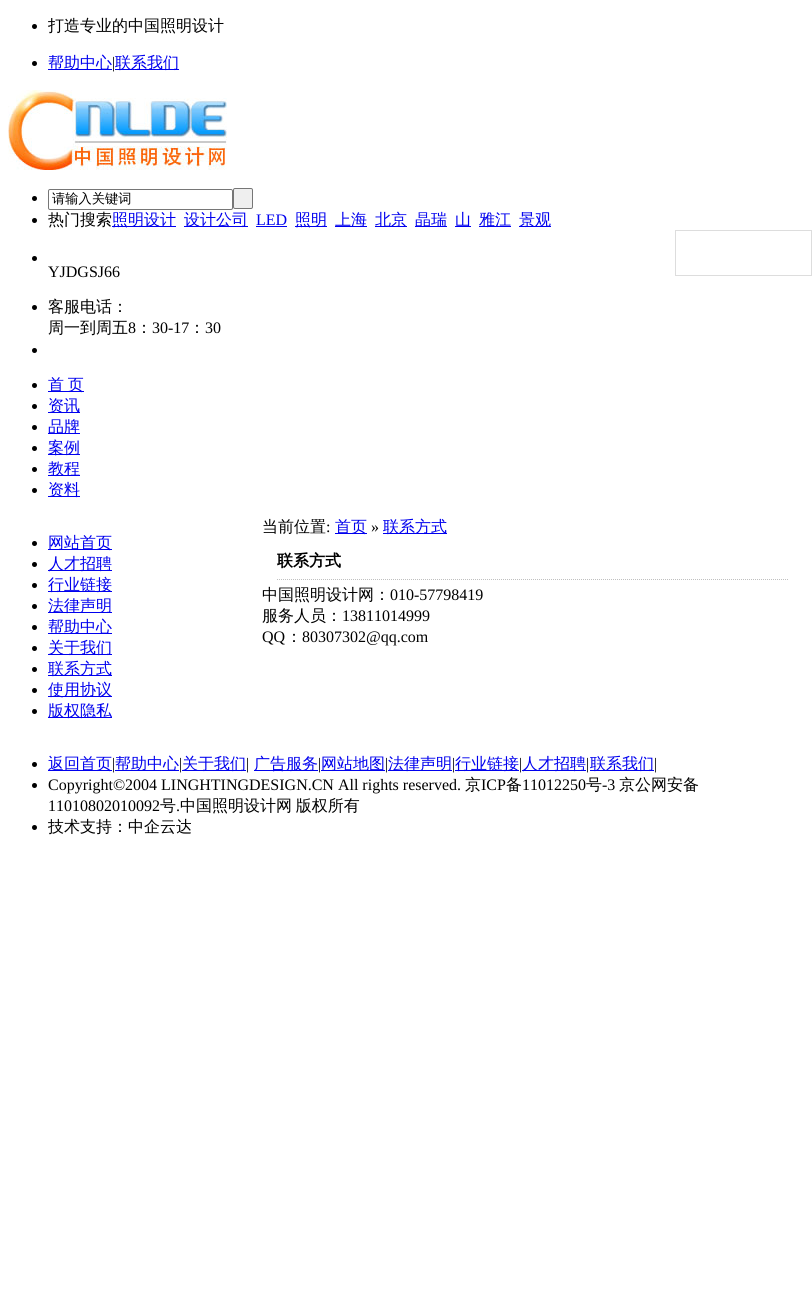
#include <cairo/cairo.h>
#include <math.h>
#include <stddef.h>


static void draw_spaced(cairo_t *cr, double x, double y, const char *s, double letter, double word) {
  cairo_move_to(cr, x, y);
  while (*s) {
    char ch[5] = {0};
    int n = 0;
    do ch[n++] = *s++; while ((*s & 0xC0) == 0x80);
    cairo_show_text(cr, ch);
    cairo_rel_move_to(cr, letter + word * (*ch == ' '), 0);
  }
}

static void rounded_rect(cairo_t *cr, double x, double y, double w, double h, double r) {
  cairo_new_sub_path(cr);
  cairo_arc(cr, x + w - r, y + h - r, r, 0, M_PI / 2);
  cairo_arc(cr, x + r, y + h - r, r, M_PI / 2, M_PI);
  cairo_arc(cr, x + r, y + r, r, M_PI, 1.5 * M_PI);
  cairo_arc(cr, x + w - r, y + r, r, 1.5 * M_PI, 2 * M_PI);
  cairo_close_path(cr);
}

static void draw_image(cairo_t *cr, const char *path, double x, double y, double w, double h) {
  cairo_surface_t *image = cairo_image_surface_create_from_png(path);
  cairo_save(cr);
  cairo_set_source_surface(cr, image, x, y);
  cairo_rectangle(cr, x, y, w, h);
  cairo_fill(cr);
  cairo_restore(cr);
  cairo_surface_destroy(image);
}

static void draw(cairo_t *cr) {
  cairo_set_source_rgb(cr, 1, 1, 1);
  cairo_paint(cr);
  cairo_set_source_rgb(cr, 0, 0, 0);
  cairo_arc(cr, 34.5, 26.5, 2.5, 0, 2 * M_PI);
  cairo_fill(cr);
  cairo_arc(cr, 34.5, 63.5, 2.5, 0, 2 * M_PI);
  cairo_fill(cr);
  cairo_set_source_rgb(cr, 0, 0, 238 / 255.0);
  cairo_rectangle(cr, 48, 69, 64, 1);
  cairo_fill(cr);
  cairo_rectangle(cr, 115, 69, 64, 1);
  cairo_fill(cr);
  draw_image(cr, "images/1.png", 8, 90, 219, 80);
  cairo_set_source_rgb(cr, 0, 0, 0);
  cairo_arc(cr, 34.5, 198.5, 2.5, 0, 2 * M_PI);
  cairo_fill(cr);
  rounded_rect(cr, 48.5, 189.5, 184, 20, 1.5);
  cairo_set_source_rgb(cr, 118 / 255.0, 118 / 255.0, 118 / 255.0);
  cairo_set_line_width(cr, 1);
  cairo_stroke(cr);
  cairo_set_source_rgb(cr, 239 / 255.0, 239 / 255.0, 239 / 255.0);
  rounded_rect(cr, 233.5, 188.5, 19, 20, 1.5);
  cairo_fill_preserve(cr);
  cairo_set_source_rgb(cr, 118 / 255.0, 118 / 255.0, 118 / 255.0);
  cairo_stroke(cr);
  cairo_set_source_rgb(cr, 0, 0, 0);
  cairo_arc(cr, 34.5, 220.5, 2.5, 0, 2 * M_PI);
  cairo_fill(cr);
  cairo_set_source_rgb(cr, 0, 0, 238 / 255.0);
  cairo_rectangle(cr, 112, 226, 64, 1);
  cairo_fill(cr);
  cairo_rectangle(cr, 184, 226, 64, 1);
  cairo_fill(cr);
  cairo_rectangle(cr, 256, 226, 31, 1);
  cairo_fill(cr);
  cairo_rectangle(cr, 295, 226, 32, 1);
  cairo_fill(cr);
  cairo_rectangle(cr, 335, 226, 32, 1);
  cairo_fill(cr);
  cairo_rectangle(cr, 375, 226, 32, 1);
  cairo_fill(cr);
  cairo_rectangle(cr, 415, 226, 32, 1);
  cairo_fill(cr);
  cairo_rectangle(cr, 455, 226, 16, 1);
  cairo_fill(cr);
  cairo_rectangle(cr, 479, 226, 32, 1);
  cairo_fill(cr);
  cairo_rectangle(cr, 519, 226, 32, 1);
  cairo_fill(cr);
  cairo_set_source_rgb(cr, 0, 0, 0);
  cairo_arc(cr, 34.5, 258.5, 2.5, 0, 2 * M_PI);
  cairo_fill(cr);
  cairo_arc(cr, 34.5, 307.5, 2.5, 0, 2 * M_PI);
  cairo_fill(cr);
  cairo_arc(cr, 34.5, 350.5, 2.5, 0, 2 * M_PI);
  cairo_fill(cr);
  cairo_arc(cr, 34.5, 385.5, 2.5, 0, 2 * M_PI);
  cairo_fill(cr);
  cairo_set_source_rgb(cr, 0, 0, 238 / 255.0);
  cairo_rectangle(cr, 48, 391, 36, 1);
  cairo_fill(cr);
  cairo_set_source_rgb(cr, 0, 0, 0);
  cairo_arc(cr, 34.5, 406.5, 2.5, 0, 2 * M_PI);
  cairo_fill(cr);
  cairo_set_source_rgb(cr, 0, 0, 238 / 255.0);
  cairo_rectangle(cr, 48, 412, 32, 1);
  cairo_fill(cr);
  cairo_set_source_rgb(cr, 0, 0, 0);
  cairo_arc(cr, 34.5, 427.5, 2.5, 0, 2 * M_PI);
  cairo_fill(cr);
  cairo_set_source_rgb(cr, 0, 0, 238 / 255.0);
  cairo_rectangle(cr, 48, 433, 32, 1);
  cairo_fill(cr);
  cairo_set_source_rgb(cr, 0, 0, 0);
  cairo_arc(cr, 34.5, 448.5, 2.5, 0, 2 * M_PI);
  cairo_fill(cr);
  cairo_set_source_rgb(cr, 0, 0, 238 / 255.0);
  cairo_rectangle(cr, 48, 454, 32, 1);
  cairo_fill(cr);
  cairo_set_source_rgb(cr, 0, 0, 0);
  cairo_arc(cr, 34.5, 469.5, 2.5, 0, 2 * M_PI);
  cairo_fill(cr);
  cairo_set_source_rgb(cr, 0, 0, 238 / 255.0);
  cairo_rectangle(cr, 48, 475, 32, 1);
  cairo_fill(cr);
  cairo_set_source_rgb(cr, 0, 0, 0);
  cairo_arc(cr, 34.5, 490.5, 2.5, 0, 2 * M_PI);
  cairo_fill(cr);
  cairo_set_source_rgb(cr, 0, 0, 238 / 255.0);
  cairo_rectangle(cr, 48, 496, 32, 1);
  cairo_fill(cr);
  cairo_rectangle(cr, 675.5, 230.5, 136, 45);
  cairo_set_source_rgb(cr, 221 / 255.0, 221 / 255.0, 221 / 255.0);
  cairo_stroke(cr);
  cairo_set_source_rgb(cr, 0, 0, 0);
  cairo_arc(cr, 34.5, 543.5, 2.5, 0, 2 * M_PI);
  cairo_fill(cr);
  cairo_set_source_rgb(cr, 0, 0, 238 / 255.0);
  cairo_rectangle(cr, 48, 549, 64, 1);
  cairo_fill(cr);
  cairo_set_source_rgb(cr, 0, 0, 0);
  cairo_arc(cr, 34.5, 564.5, 2.5, 0, 2 * M_PI);
  cairo_fill(cr);
  cairo_set_source_rgb(cr, 0, 0, 238 / 255.0);
  cairo_rectangle(cr, 48, 570, 64, 1);
  cairo_fill(cr);
  cairo_set_source_rgb(cr, 0, 0, 0);
  cairo_arc(cr, 34.5, 585.5, 2.5, 0, 2 * M_PI);
  cairo_fill(cr);
  cairo_set_source_rgb(cr, 0, 0, 238 / 255.0);
  cairo_rectangle(cr, 48, 591, 64, 1);
  cairo_fill(cr);
  cairo_set_source_rgb(cr, 0, 0, 0);
  cairo_arc(cr, 34.5, 606.5, 2.5, 0, 2 * M_PI);
  cairo_fill(cr);
  cairo_set_source_rgb(cr, 0, 0, 238 / 255.0);
  cairo_rectangle(cr, 48, 612, 64, 1);
  cairo_fill(cr);
  cairo_set_source_rgb(cr, 0, 0, 0);
  cairo_arc(cr, 34.5, 627.5, 2.5, 0, 2 * M_PI);
  cairo_fill(cr);
  cairo_set_source_rgb(cr, 0, 0, 238 / 255.0);
  cairo_rectangle(cr, 48, 633, 64, 1);
  cairo_fill(cr);
  cairo_set_source_rgb(cr, 0, 0, 0);
  cairo_arc(cr, 34.5, 648.5, 2.5, 0, 2 * M_PI);
  cairo_fill(cr);
  cairo_set_source_rgb(cr, 0, 0, 238 / 255.0);
  cairo_rectangle(cr, 48, 654, 64, 1);
  cairo_fill(cr);
  cairo_set_source_rgb(cr, 0, 0, 0);
  cairo_arc(cr, 34.5, 669.5, 2.5, 0, 2 * M_PI);
  cairo_fill(cr);
  cairo_set_source_rgb(cr, 0, 0, 238 / 255.0);
  cairo_rectangle(cr, 48, 675, 64, 1);
  cairo_fill(cr);
  cairo_set_source_rgb(cr, 0, 0, 0);
  cairo_arc(cr, 34.5, 690.5, 2.5, 0, 2 * M_PI);
  cairo_fill(cr);
  cairo_set_source_rgb(cr, 0, 0, 238 / 255.0);
  cairo_rectangle(cr, 48, 696, 64, 1);
  cairo_fill(cr);
  cairo_set_source_rgb(cr, 0, 0, 0);
  cairo_arc(cr, 34.5, 711.5, 2.5, 0, 2 * M_PI);
  cairo_fill(cr);
  cairo_set_source_rgb(cr, 0, 0, 238 / 255.0);
  cairo_rectangle(cr, 48, 717, 64, 1);
  cairo_fill(cr);
  cairo_rectangle(cr, 335, 533, 32, 1);
  cairo_fill(cr);
  cairo_rectangle(cr, 383, 533, 64, 1);
  cairo_fill(cr);
  cairo_new_path(cr);
  cairo_move_to(cr, 277, 579.5);
  cairo_line_to(cr, 789, 579.5);
  cairo_set_source_rgb(cr, 192 / 255.0, 192 / 255.0, 192 / 255.0);
  cairo_set_dash(cr, (double[]){1, 1}, 2, 0);
  cairo_stroke(cr);
  cairo_set_source_rgb(cr, 0, 0, 0);
  cairo_arc(cr, 34.5, 764.5, 2.5, 0, 2 * M_PI);
  cairo_fill(cr);
  cairo_set_source_rgb(cr, 0, 0, 238 / 255.0);
  cairo_rectangle(cr, 48, 770, 64, 1);
  cairo_fill(cr);
  cairo_rectangle(cr, 115, 770, 64, 1);
  cairo_fill(cr);
  cairo_rectangle(cr, 182, 770, 64, 1);
  cairo_fill(cr);
  cairo_rectangle(cr, 254, 770, 64, 1);
  cairo_fill(cr);
  cairo_rectangle(cr, 321, 770, 64, 1);
  cairo_fill(cr);
  cairo_rectangle(cr, 388, 770, 64, 1);
  cairo_fill(cr);
  cairo_rectangle(cr, 455, 770, 64, 1);
  cairo_fill(cr);
  cairo_rectangle(cr, 522, 770, 64, 1);
  cairo_fill(cr);
  cairo_rectangle(cr, 590, 770, 64, 1);
  cairo_fill(cr);
  cairo_set_source_rgb(cr, 0, 0, 0);
  cairo_arc(cr, 34.5, 785.5, 2.5, 0, 2 * M_PI);
  cairo_fill(cr);
  cairo_arc(cr, 34.5, 827.5, 2.5, 0, 2 * M_PI);
  cairo_fill(cr);
  cairo_select_font_face(cr, "WenQuanYi Zen Hei Medium", CAIRO_FONT_SLANT_NORMAL, CAIRO_FONT_WEIGHT_NORMAL);
  cairo_set_font_size(cr, 16);
  cairo_move_to(cr, 48, 31);
  cairo_show_text(cr, "打造专业的中国照明设计");
  cairo_set_source_rgb(cr, 0, 0, 238 / 255.0);
  cairo_move_to(cr, 48, 68);
  cairo_show_text(cr, "帮助中心");
  cairo_select_font_face(cr, "Liberation Serif", CAIRO_FONT_SLANT_NORMAL, CAIRO_FONT_WEIGHT_NORMAL);
  cairo_set_source_rgb(cr, 0, 0, 0);
  cairo_move_to(cr, 112, 68);
  cairo_show_text(cr, "|");
  cairo_select_font_face(cr, "WenQuanYi Zen Hei Medium", CAIRO_FONT_SLANT_NORMAL, CAIRO_FONT_WEIGHT_NORMAL);
  cairo_set_source_rgb(cr, 0, 0, 238 / 255.0);
  cairo_move_to(cr, 115, 68);
  cairo_show_text(cr, "联系我们");
  cairo_set_font_size(cr, 13.25);
  cairo_set_source_rgb(cr, 0, 0, 0);
  cairo_move_to(cr, 52, 203);
  cairo_show_text(cr, "请输入关键词");
  cairo_set_font_size(cr, 16);
  cairo_move_to(cr, 48, 225);
  cairo_show_text(cr, "热门搜索");
  cairo_set_source_rgb(cr, 0, 0, 238 / 255.0);
  cairo_move_to(cr, 112, 225);
  cairo_show_text(cr, "照明设计");
  cairo_move_to(cr, 184, 225);
  cairo_show_text(cr, "设计公司");
  cairo_select_font_face(cr, "Liberation Serif", CAIRO_FONT_SLANT_NORMAL, CAIRO_FONT_WEIGHT_NORMAL);
  cairo_move_to(cr, 256, 225);
  cairo_show_text(cr, "LED");
  cairo_select_font_face(cr, "WenQuanYi Zen Hei Medium", CAIRO_FONT_SLANT_NORMAL, CAIRO_FONT_WEIGHT_NORMAL);
  cairo_move_to(cr, 295, 225);
  cairo_show_text(cr, "照明");
  cairo_move_to(cr, 335, 225);
  cairo_show_text(cr, "上海");
  cairo_move_to(cr, 375, 225);
  cairo_show_text(cr, "北京");
  cairo_move_to(cr, 415, 225);
  cairo_show_text(cr, "晶瑞");
  cairo_move_to(cr, 455, 225);
  cairo_show_text(cr, "山");
  cairo_move_to(cr, 479, 225);
  cairo_show_text(cr, "雅江");
  cairo_move_to(cr, 519, 225);
  cairo_show_text(cr, "景观");
  cairo_select_font_face(cr, "Liberation Serif", CAIRO_FONT_SLANT_NORMAL, CAIRO_FONT_WEIGHT_NORMAL);
  cairo_set_source_rgb(cr, 0, 0, 0);
  cairo_move_to(cr, 48, 277);
  cairo_show_text(cr, "YJDGSJ66");
  cairo_select_font_face(cr, "WenQuanYi Zen Hei Medium", CAIRO_FONT_SLANT_NORMAL, CAIRO_FONT_WEIGHT_NORMAL);
  cairo_move_to(cr, 48, 312);
  cairo_show_text(cr, "客服电话：");
  cairo_move_to(cr, 48, 333);
  cairo_show_text(cr, "周一到周五");
  cairo_select_font_face(cr, "Liberation Serif", CAIRO_FONT_SLANT_NORMAL, CAIRO_FONT_WEIGHT_NORMAL);
  cairo_move_to(cr, 128, 333);
  cairo_show_text(cr, "8");
  cairo_select_font_face(cr, "WenQuanYi Zen Hei Medium", CAIRO_FONT_SLANT_NORMAL, CAIRO_FONT_WEIGHT_NORMAL);
  cairo_move_to(cr, 136, 333);
  cairo_show_text(cr, "：");
  cairo_select_font_face(cr, "Liberation Serif", CAIRO_FONT_SLANT_NORMAL, CAIRO_FONT_WEIGHT_NORMAL);
  cairo_move_to(cr, 152, 333);
  cairo_show_text(cr, "30-17");
  cairo_select_font_face(cr, "WenQuanYi Zen Hei Medium", CAIRO_FONT_SLANT_NORMAL, CAIRO_FONT_WEIGHT_NORMAL);
  cairo_move_to(cr, 189, 333);
  cairo_show_text(cr, "：");
  cairo_select_font_face(cr, "Liberation Serif", CAIRO_FONT_SLANT_NORMAL, CAIRO_FONT_WEIGHT_NORMAL);
  cairo_move_to(cr, 205, 333);
  cairo_show_text(cr, "30");
  cairo_select_font_face(cr, "WenQuanYi Zen Hei Medium", CAIRO_FONT_SLANT_NORMAL, CAIRO_FONT_WEIGHT_NORMAL);
  cairo_set_source_rgb(cr, 0, 0, 238 / 255.0);
  draw_spaced(cr, 48, 390, "首 页", 0, -1);
  cairo_move_to(cr, 48, 411);
  cairo_show_text(cr, "资讯");
  cairo_move_to(cr, 48, 432);
  cairo_show_text(cr, "品牌");
  cairo_move_to(cr, 48, 453);
  cairo_show_text(cr, "案例");
  cairo_move_to(cr, 48, 474);
  cairo_show_text(cr, "教程");
  cairo_move_to(cr, 48, 495);
  cairo_show_text(cr, "资料");
  cairo_move_to(cr, 48, 548);
  cairo_show_text(cr, "网站首页");
  cairo_move_to(cr, 48, 569);
  cairo_show_text(cr, "人才招聘");
  cairo_move_to(cr, 48, 590);
  cairo_show_text(cr, "行业链接");
  cairo_move_to(cr, 48, 611);
  cairo_show_text(cr, "法律声明");
  cairo_move_to(cr, 48, 632);
  cairo_show_text(cr, "帮助中心");
  cairo_move_to(cr, 48, 653);
  cairo_show_text(cr, "关于我们");
  cairo_move_to(cr, 48, 674);
  cairo_show_text(cr, "联系方式");
  cairo_move_to(cr, 48, 695);
  cairo_show_text(cr, "使用协议");
  cairo_move_to(cr, 48, 716);
  cairo_show_text(cr, "版权隐私");
  cairo_set_source_rgb(cr, 0, 0, 0);
  cairo_move_to(cr, 262, 532);
  cairo_show_text(cr, "当前位置");
  cairo_select_font_face(cr, "Liberation Serif", CAIRO_FONT_SLANT_NORMAL, CAIRO_FONT_WEIGHT_NORMAL);
  cairo_move_to(cr, 326, 532);
  cairo_show_text(cr, ":");
  cairo_select_font_face(cr, "WenQuanYi Zen Hei Medium", CAIRO_FONT_SLANT_NORMAL, CAIRO_FONT_WEIGHT_NORMAL);
  cairo_set_source_rgb(cr, 0, 0, 238 / 255.0);
  cairo_move_to(cr, 335, 532);
  cairo_show_text(cr, "首页");
  cairo_select_font_face(cr, "Liberation Serif", CAIRO_FONT_SLANT_NORMAL, CAIRO_FONT_WEIGHT_NORMAL);
  cairo_set_source_rgb(cr, 0, 0, 0);
  cairo_move_to(cr, 371, 532);
  cairo_show_text(cr, "»");
  cairo_select_font_face(cr, "WenQuanYi Zen Hei Medium", CAIRO_FONT_SLANT_NORMAL, CAIRO_FONT_WEIGHT_NORMAL);
  cairo_set_source_rgb(cr, 0, 0, 238 / 255.0);
  cairo_move_to(cr, 383, 532);
  cairo_show_text(cr, "联系方式");
  cairo_select_font_face(cr, "WenQuanYi Zen Hei", CAIRO_FONT_SLANT_NORMAL, CAIRO_FONT_WEIGHT_BOLD);
  cairo_set_source_rgb(cr, 0, 0, 0);
  cairo_move_to(cr, 277, 566);
  cairo_show_text(cr, "联系方式");
  cairo_select_font_face(cr, "WenQuanYi Zen Hei Medium", CAIRO_FONT_SLANT_NORMAL, CAIRO_FONT_WEIGHT_NORMAL);
  cairo_move_to(cr, 262, 600);
  cairo_show_text(cr, "中国照明设计网：");
  cairo_select_font_face(cr, "Liberation Serif", CAIRO_FONT_SLANT_NORMAL, CAIRO_FONT_WEIGHT_NORMAL);
  cairo_move_to(cr, 390, 600);
  cairo_show_text(cr, "010-57798419");
  cairo_select_font_face(cr, "WenQuanYi Zen Hei Medium", CAIRO_FONT_SLANT_NORMAL, CAIRO_FONT_WEIGHT_NORMAL);
  cairo_move_to(cr, 262, 621);
  cairo_show_text(cr, "服务人员：");
  cairo_select_font_face(cr, "Liberation Serif", CAIRO_FONT_SLANT_NORMAL, CAIRO_FONT_WEIGHT_NORMAL);
  cairo_move_to(cr, 342, 621);
  cairo_show_text(cr, "13811014999");
  cairo_move_to(cr, 262, 642);
  cairo_show_text(cr, "QQ");
  cairo_select_font_face(cr, "WenQuanYi Zen Hei Medium", CAIRO_FONT_SLANT_NORMAL, CAIRO_FONT_WEIGHT_NORMAL);
  cairo_move_to(cr, 286, 642);
  cairo_show_text(cr, "：");
  cairo_select_font_face(cr, "Liberation Serif", CAIRO_FONT_SLANT_NORMAL, CAIRO_FONT_WEIGHT_NORMAL);
  cairo_move_to(cr, 302, 642);
  cairo_show_text(cr, "80307302@qq.com");
  cairo_select_font_face(cr, "WenQuanYi Zen Hei Medium", CAIRO_FONT_SLANT_NORMAL, CAIRO_FONT_WEIGHT_NORMAL);
  cairo_set_source_rgb(cr, 0, 0, 238 / 255.0);
  cairo_move_to(cr, 48, 769);
  cairo_show_text(cr, "返回首页");
  cairo_select_font_face(cr, "Liberation Serif", CAIRO_FONT_SLANT_NORMAL, CAIRO_FONT_WEIGHT_NORMAL);
  cairo_set_source_rgb(cr, 0, 0, 0);
  cairo_move_to(cr, 112, 769);
  cairo_show_text(cr, "|");
  cairo_select_font_face(cr, "WenQuanYi Zen Hei Medium", CAIRO_FONT_SLANT_NORMAL, CAIRO_FONT_WEIGHT_NORMAL);
  cairo_set_source_rgb(cr, 0, 0, 238 / 255.0);
  cairo_move_to(cr, 115, 769);
  cairo_show_text(cr, "帮助中心");
  cairo_select_font_face(cr, "Liberation Serif", CAIRO_FONT_SLANT_NORMAL, CAIRO_FONT_WEIGHT_NORMAL);
  cairo_set_source_rgb(cr, 0, 0, 0);
  cairo_move_to(cr, 179, 769);
  cairo_show_text(cr, "|");
  cairo_select_font_face(cr, "WenQuanYi Zen Hei Medium", CAIRO_FONT_SLANT_NORMAL, CAIRO_FONT_WEIGHT_NORMAL);
  cairo_set_source_rgb(cr, 0, 0, 238 / 255.0);
  cairo_move_to(cr, 182, 769);
  cairo_show_text(cr, "关于我们");
  cairo_select_font_face(cr, "Liberation Serif", CAIRO_FONT_SLANT_NORMAL, CAIRO_FONT_WEIGHT_NORMAL);
  cairo_set_source_rgb(cr, 0, 0, 0);
  cairo_move_to(cr, 246, 769);
  cairo_show_text(cr, "|");
  cairo_select_font_face(cr, "WenQuanYi Zen Hei Medium", CAIRO_FONT_SLANT_NORMAL, CAIRO_FONT_WEIGHT_NORMAL);
  cairo_set_source_rgb(cr, 0, 0, 238 / 255.0);
  cairo_move_to(cr, 254, 769);
  cairo_show_text(cr, "广告服务");
  cairo_select_font_face(cr, "Liberation Serif", CAIRO_FONT_SLANT_NORMAL, CAIRO_FONT_WEIGHT_NORMAL);
  cairo_set_source_rgb(cr, 0, 0, 0);
  cairo_move_to(cr, 318, 769);
  cairo_show_text(cr, "|");
  cairo_select_font_face(cr, "WenQuanYi Zen Hei Medium", CAIRO_FONT_SLANT_NORMAL, CAIRO_FONT_WEIGHT_NORMAL);
  cairo_set_source_rgb(cr, 0, 0, 238 / 255.0);
  cairo_move_to(cr, 321, 769);
  cairo_show_text(cr, "网站地图");
  cairo_select_font_face(cr, "Liberation Serif", CAIRO_FONT_SLANT_NORMAL, CAIRO_FONT_WEIGHT_NORMAL);
  cairo_set_source_rgb(cr, 0, 0, 0);
  cairo_move_to(cr, 385, 769);
  cairo_show_text(cr, "|");
  cairo_select_font_face(cr, "WenQuanYi Zen Hei Medium", CAIRO_FONT_SLANT_NORMAL, CAIRO_FONT_WEIGHT_NORMAL);
  cairo_set_source_rgb(cr, 0, 0, 238 / 255.0);
  cairo_move_to(cr, 388, 769);
  cairo_show_text(cr, "法律声明");
  cairo_select_font_face(cr, "Liberation Serif", CAIRO_FONT_SLANT_NORMAL, CAIRO_FONT_WEIGHT_NORMAL);
  cairo_set_source_rgb(cr, 0, 0, 0);
  cairo_move_to(cr, 452, 769);
  cairo_show_text(cr, "|");
  cairo_select_font_face(cr, "WenQuanYi Zen Hei Medium", CAIRO_FONT_SLANT_NORMAL, CAIRO_FONT_WEIGHT_NORMAL);
  cairo_set_source_rgb(cr, 0, 0, 238 / 255.0);
  cairo_move_to(cr, 455, 769);
  cairo_show_text(cr, "行业链接");
  cairo_select_font_face(cr, "Liberation Serif", CAIRO_FONT_SLANT_NORMAL, CAIRO_FONT_WEIGHT_NORMAL);
  cairo_set_source_rgb(cr, 0, 0, 0);
  cairo_move_to(cr, 519, 769);
  cairo_show_text(cr, "|");
  cairo_select_font_face(cr, "WenQuanYi Zen Hei Medium", CAIRO_FONT_SLANT_NORMAL, CAIRO_FONT_WEIGHT_NORMAL);
  cairo_set_source_rgb(cr, 0, 0, 238 / 255.0);
  cairo_move_to(cr, 522, 769);
  cairo_show_text(cr, "人才招聘");
  cairo_select_font_face(cr, "Liberation Serif", CAIRO_FONT_SLANT_NORMAL, CAIRO_FONT_WEIGHT_NORMAL);
  cairo_set_source_rgb(cr, 0, 0, 0);
  cairo_move_to(cr, 586, 769);
  cairo_show_text(cr, "|");
  cairo_select_font_face(cr, "WenQuanYi Zen Hei Medium", CAIRO_FONT_SLANT_NORMAL, CAIRO_FONT_WEIGHT_NORMAL);
  cairo_set_source_rgb(cr, 0, 0, 238 / 255.0);
  cairo_move_to(cr, 590, 769);
  cairo_show_text(cr, "联系我们");
  cairo_select_font_face(cr, "Liberation Serif", CAIRO_FONT_SLANT_NORMAL, CAIRO_FONT_WEIGHT_NORMAL);
  cairo_set_source_rgb(cr, 0, 0, 0);
  cairo_move_to(cr, 654, 769);
  cairo_show_text(cr, "|");
  cairo_move_to(cr, 48, 790);
  cairo_show_text(cr, "Copyright©2004 LINGHTINGDESIGN.CN All rights reserved.");
  cairo_select_font_face(cr, "WenQuanYi Zen Hei Medium", CAIRO_FONT_SLANT_NORMAL, CAIRO_FONT_WEIGHT_NORMAL);
  cairo_move_to(cr, 465, 790);
  cairo_show_text(cr, "京");
  cairo_select_font_face(cr, "Liberation Serif", CAIRO_FONT_SLANT_NORMAL, CAIRO_FONT_WEIGHT_NORMAL);
  cairo_move_to(cr, 481, 790);
  cairo_show_text(cr, "ICP");
  cairo_select_font_face(cr, "WenQuanYi Zen Hei Medium", CAIRO_FONT_SLANT_NORMAL, CAIRO_FONT_WEIGHT_NORMAL);
  cairo_move_to(cr, 506, 790);
  cairo_show_text(cr, "备");
  cairo_select_font_face(cr, "Liberation Serif", CAIRO_FONT_SLANT_NORMAL, CAIRO_FONT_WEIGHT_NORMAL);
  cairo_move_to(cr, 522, 790);
  cairo_show_text(cr, "11012250");
  cairo_select_font_face(cr, "WenQuanYi Zen Hei Medium", CAIRO_FONT_SLANT_NORMAL, CAIRO_FONT_WEIGHT_NORMAL);
  cairo_move_to(cr, 586, 790);
  cairo_show_text(cr, "号");
  cairo_select_font_face(cr, "Liberation Serif", CAIRO_FONT_SLANT_NORMAL, CAIRO_FONT_WEIGHT_NORMAL);
  cairo_move_to(cr, 602, 790);
  cairo_show_text(cr, "-3");
  cairo_select_font_face(cr, "WenQuanYi Zen Hei Medium", CAIRO_FONT_SLANT_NORMAL, CAIRO_FONT_WEIGHT_NORMAL);
  cairo_move_to(cr, 619, 790);
  cairo_show_text(cr, "京公网安备");
  cairo_select_font_face(cr, "Liberation Serif", CAIRO_FONT_SLANT_NORMAL, CAIRO_FONT_WEIGHT_NORMAL);
  cairo_move_to(cr, 48, 811);
  cairo_show_text(cr, "11010802010092");
  cairo_select_font_face(cr, "WenQuanYi Zen Hei Medium", CAIRO_FONT_SLANT_NORMAL, CAIRO_FONT_WEIGHT_NORMAL);
  cairo_move_to(cr, 160, 811);
  cairo_show_text(cr, "号");
  cairo_select_font_face(cr, "Liberation Serif", CAIRO_FONT_SLANT_NORMAL, CAIRO_FONT_WEIGHT_NORMAL);
  cairo_move_to(cr, 176, 811);
  cairo_show_text(cr, ".");
  cairo_select_font_face(cr, "WenQuanYi Zen Hei Medium", CAIRO_FONT_SLANT_NORMAL, CAIRO_FONT_WEIGHT_NORMAL);
  draw_spaced(cr, 180, 811, "中国照明设计网 版权所有", 0, -1);
  cairo_move_to(cr, 48, 832);
  cairo_show_text(cr, "技术支持：中企云达");
}

int main(void) {
  cairo_surface_t *surface = cairo_image_surface_create(CAIRO_FORMAT_RGB24, 812, 1291);
  cairo_t *cr = cairo_create(surface);
  cairo_font_options_t *options = cairo_font_options_create();
  cairo_font_options_set_hint_metrics(options, CAIRO_HINT_METRICS_OFF);
  cairo_font_options_set_hint_style(options, CAIRO_HINT_STYLE_NONE);
  cairo_set_font_options(cr, options);
  cairo_set_miter_limit(cr, 4);
  draw(cr);
  cairo_surface_write_to_png(surface, "out.png");
  cairo_font_options_destroy(options);
  cairo_destroy(cr);
  cairo_surface_destroy(surface);
  return 0;
}
